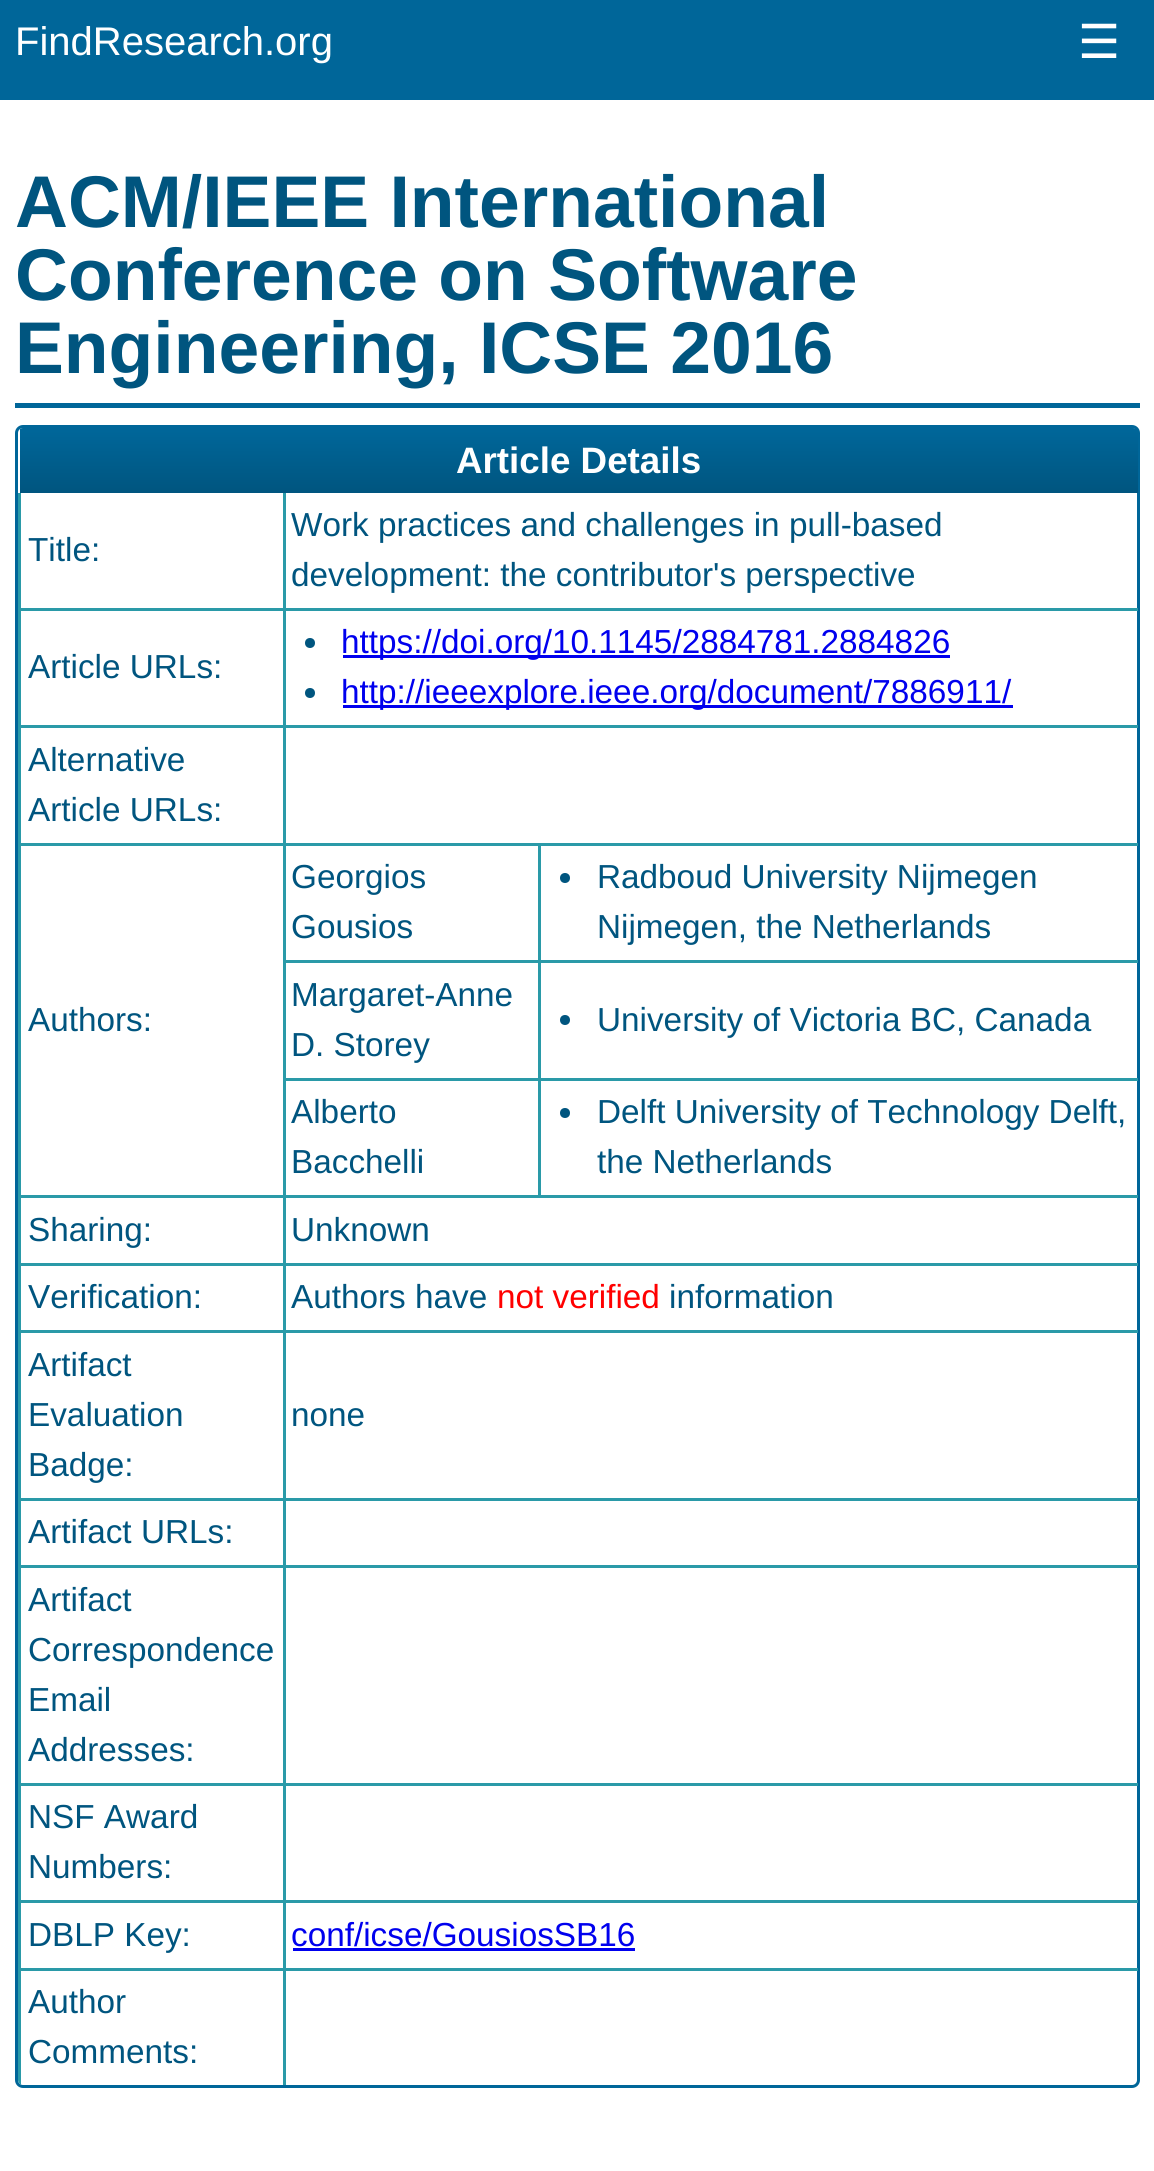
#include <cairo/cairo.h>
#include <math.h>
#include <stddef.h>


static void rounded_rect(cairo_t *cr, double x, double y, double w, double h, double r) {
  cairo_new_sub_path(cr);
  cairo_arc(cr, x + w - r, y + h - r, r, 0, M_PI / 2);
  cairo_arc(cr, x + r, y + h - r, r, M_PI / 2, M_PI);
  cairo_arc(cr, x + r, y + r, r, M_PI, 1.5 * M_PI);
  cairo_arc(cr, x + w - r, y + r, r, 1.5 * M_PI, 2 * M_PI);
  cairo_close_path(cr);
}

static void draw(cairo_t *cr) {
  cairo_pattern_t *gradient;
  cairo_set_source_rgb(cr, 1, 1, 1);
  cairo_paint(cr);
  cairo_set_source_rgb(cr, 0, 102 / 255.0, 153 / 255.0);
  cairo_rectangle(cr, 0, 0, 1154, 100);
  cairo_fill(cr);
  cairo_rectangle(cr, 15, 403, 1125, 5);
  cairo_fill(cr);
  rounded_rect(cr, 16.5, 426.5, 1122, 1660, 6.5);
  cairo_set_line_width(cr, 3);
  cairo_stroke(cr);
  cairo_save(cr);
  rounded_rect(cr, 18, 428, 1120, 1657, 5);
  cairo_clip(cr);
  gradient = cairo_pattern_create_linear(20, 428, 20, 493);
  cairo_pattern_add_color_stop_rgba(gradient, 0.05, 0, 102 / 255.0, 153 / 255.0, 1);
  cairo_pattern_add_color_stop_rgba(gradient, 1, 0, 85 / 255.0, 127 / 255.0, 1);
  cairo_set_source(cr, gradient);
  cairo_pattern_destroy(gradient);
  cairo_new_path(cr);
  cairo_move_to(cr, 20, 428);
  cairo_line_to(cr, 1133, 428);
  cairo_curve_to(cr, 1136, 428, 1138, 430, 1138, 433);
  cairo_line_to(cr, 1138, 493);
  cairo_line_to(cr, 20, 493);
  cairo_close_path(cr);
  cairo_fill(cr);
  cairo_restore(cr);
  cairo_set_source_rgb(cr, 42 / 255.0, 154 / 255.0, 168 / 255.0);
  cairo_rectangle(cr, 538, 1195, 600, 3);
  cairo_fill(cr);
  cairo_rectangle(cr, 538, 1078, 3, 120);
  cairo_fill(cr);
  cairo_rectangle(cr, 538, 1078, 600, 3);
  cairo_fill(cr);
  cairo_rectangle(cr, 538, 960, 3, 120);
  cairo_fill(cr);
  cairo_rectangle(cr, 538, 960, 600, 3);
  cairo_fill(cr);
  cairo_rectangle(cr, 538, 843, 3, 120);
  cairo_fill(cr);
  cairo_rectangle(cr, 283, 1968, 3, 117);
  cairo_fill(cr);
  cairo_rectangle(cr, 283, 1968, 855, 3);
  cairo_fill(cr);
  cairo_rectangle(cr, 283, 1900, 3, 70);
  cairo_fill(cr);
  cairo_rectangle(cr, 283, 1900, 855, 3);
  cairo_fill(cr);
  cairo_rectangle(cr, 283, 1783, 3, 120);
  cairo_fill(cr);
  cairo_rectangle(cr, 283, 1783, 855, 3);
  cairo_fill(cr);
  cairo_rectangle(cr, 283, 1565, 3, 220);
  cairo_fill(cr);
  cairo_rectangle(cr, 283, 1565, 855, 3);
  cairo_fill(cr);
  cairo_rectangle(cr, 283, 1498, 3, 70);
  cairo_fill(cr);
  cairo_rectangle(cr, 283, 1498, 855, 3);
  cairo_fill(cr);
  cairo_rectangle(cr, 283, 1330, 3, 170);
  cairo_fill(cr);
  cairo_rectangle(cr, 283, 1330, 855, 3);
  cairo_fill(cr);
  cairo_rectangle(cr, 283, 1263, 3, 70);
  cairo_fill(cr);
  cairo_rectangle(cr, 283, 1263, 855, 3);
  cairo_fill(cr);
  cairo_rectangle(cr, 283, 1195, 3, 70);
  cairo_fill(cr);
  cairo_rectangle(cr, 283, 1195, 257, 3);
  cairo_fill(cr);
  cairo_rectangle(cr, 283, 1078, 3, 120);
  cairo_fill(cr);
  cairo_rectangle(cr, 283, 1078, 257, 3);
  cairo_fill(cr);
  cairo_rectangle(cr, 283, 960, 3, 120);
  cairo_fill(cr);
  cairo_rectangle(cr, 283, 960, 257, 3);
  cairo_fill(cr);
  cairo_rectangle(cr, 283, 843, 3, 120);
  cairo_fill(cr);
  cairo_rectangle(cr, 283, 843, 855, 3);
  cairo_fill(cr);
  cairo_rectangle(cr, 283, 725, 3, 120);
  cairo_fill(cr);
  cairo_rectangle(cr, 283, 725, 855, 3);
  cairo_fill(cr);
  cairo_rectangle(cr, 283, 608, 3, 120);
  cairo_fill(cr);
  cairo_rectangle(cr, 283, 608, 855, 3);
  cairo_fill(cr);
  cairo_rectangle(cr, 283, 493, 3, 117);
  cairo_fill(cr);
  cairo_save(cr);
  rounded_rect(cr, 18, 428, 1120, 1657, 5);
  cairo_clip(cr);
  cairo_rectangle(cr, 18, 1968, 3, 117);
  cairo_fill(cr);
  cairo_restore(cr);
  cairo_rectangle(cr, 18, 1968, 267, 3);
  cairo_fill(cr);
  cairo_rectangle(cr, 18, 1900, 3, 70);
  cairo_fill(cr);
  cairo_rectangle(cr, 18, 1900, 267, 3);
  cairo_fill(cr);
  cairo_rectangle(cr, 18, 1783, 3, 120);
  cairo_fill(cr);
  cairo_rectangle(cr, 18, 1783, 267, 3);
  cairo_fill(cr);
  cairo_rectangle(cr, 18, 1565, 3, 220);
  cairo_fill(cr);
  cairo_rectangle(cr, 18, 1565, 267, 3);
  cairo_fill(cr);
  cairo_rectangle(cr, 18, 1498, 3, 70);
  cairo_fill(cr);
  cairo_rectangle(cr, 18, 1498, 267, 3);
  cairo_fill(cr);
  cairo_rectangle(cr, 18, 1330, 3, 170);
  cairo_fill(cr);
  cairo_rectangle(cr, 18, 1330, 267, 3);
  cairo_fill(cr);
  cairo_rectangle(cr, 18, 1263, 3, 70);
  cairo_fill(cr);
  cairo_rectangle(cr, 18, 1263, 267, 3);
  cairo_fill(cr);
  cairo_rectangle(cr, 18, 1195, 3, 70);
  cairo_fill(cr);
  cairo_rectangle(cr, 18, 1195, 267, 3);
  cairo_fill(cr);
  cairo_rectangle(cr, 18, 843, 3, 355);
  cairo_fill(cr);
  cairo_rectangle(cr, 18, 843, 267, 3);
  cairo_fill(cr);
  cairo_rectangle(cr, 18, 725, 3, 120);
  cairo_fill(cr);
  cairo_rectangle(cr, 18, 725, 267, 3);
  cairo_fill(cr);
  cairo_rectangle(cr, 18, 608, 3, 120);
  cairo_fill(cr);
  cairo_rectangle(cr, 18, 608, 267, 3);
  cairo_fill(cr);
  cairo_rectangle(cr, 18, 493, 3, 117);
  cairo_fill(cr);
  cairo_set_source_rgb(cr, 0, 85 / 255.0, 127 / 255.0);
  cairo_arc(cr, 310, 643, 5, 0, 2 * M_PI);
  cairo_fill(cr);
  cairo_set_source_rgb(cr, 0, 0, 238 / 255.0);
  cairo_rectangle(cr, 343, 655, 607, 3);
  cairo_fill(cr);
  cairo_set_source_rgb(cr, 0, 85 / 255.0, 127 / 255.0);
  cairo_arc(cr, 310, 693, 5, 0, 2 * M_PI);
  cairo_fill(cr);
  cairo_set_source_rgb(cr, 0, 0, 238 / 255.0);
  cairo_rectangle(cr, 343, 705, 670, 3);
  cairo_fill(cr);
  cairo_set_source_rgb(cr, 0, 85 / 255.0, 127 / 255.0);
  cairo_arc(cr, 565, 878, 5, 0, 2 * M_PI);
  cairo_fill(cr);
  cairo_arc(cr, 565, 1020, 5, 0, 2 * M_PI);
  cairo_fill(cr);
  cairo_arc(cr, 565, 1113, 5, 0, 2 * M_PI);
  cairo_fill(cr);
  cairo_set_source_rgb(cr, 0, 0, 238 / 255.0);
  cairo_rectangle(cr, 293, 1948, 342, 3);
  cairo_fill(cr);
  cairo_select_font_face(cr, "Liberation Sans", CAIRO_FONT_SLANT_NORMAL, CAIRO_FONT_WEIGHT_NORMAL);
  cairo_set_font_size(cr, 40);
  cairo_set_source_rgb(cr, 1, 1, 1);
  cairo_move_to(cr, 15, 55);
  cairo_show_text(cr, "FindResearch.org");
  cairo_select_font_face(cr, "DejaVu Sans", CAIRO_FONT_SLANT_NORMAL, CAIRO_FONT_WEIGHT_NORMAL);
  cairo_set_font_size(cr, 47);
  cairo_move_to(cr, 1078, 58);
  cairo_show_text(cr, "☰");
  cairo_select_font_face(cr, "Liberation Sans", CAIRO_FONT_SLANT_NORMAL, CAIRO_FONT_WEIGHT_BOLD);
  cairo_set_font_size(cr, 73.25);
  cairo_set_source_rgb(cr, 0, 85 / 255.0, 127 / 255.0);
  cairo_move_to(cr, 15, 227);
  cairo_show_text(cr, "ACM/IEEE International");
  cairo_move_to(cr, 15, 300);
  cairo_show_text(cr, "Conference on Software");
  cairo_move_to(cr, 15, 373);
  cairo_show_text(cr, "Engineering, ICSE 2016");
  cairo_set_font_size(cr, 36.75);
  cairo_set_source_rgb(cr, 1, 1, 1);
  cairo_move_to(cr, 456, 473);
  cairo_show_text(cr, "Article Details");
  cairo_select_font_face(cr, "Liberation Sans", CAIRO_FONT_SLANT_NORMAL, CAIRO_FONT_WEIGHT_NORMAL);
  cairo_set_font_size(cr, 33.3);
  cairo_set_source_rgb(cr, 0, 85 / 255.0, 127 / 255.0);
  cairo_move_to(cr, 28, 561);
  cairo_show_text(cr, "Title:");
  cairo_move_to(cr, 291, 536);
  cairo_show_text(cr, "Work practices and challenges in pull-based");
  cairo_move_to(cr, 291, 586);
  cairo_show_text(cr, "development: the contributor's perspective");
  cairo_move_to(cr, 28, 678);
  cairo_show_text(cr, "Article URLs:");
  cairo_set_source_rgb(cr, 0, 0, 238 / 255.0);
  cairo_move_to(cr, 341, 653);
  cairo_show_text(cr, "https://doi.org/10.1145/2884781.2884826");
  cairo_move_to(cr, 341, 703);
  cairo_show_text(cr, "http://ieeexplore.ieee.org/document/7886911/");
  cairo_set_source_rgb(cr, 0, 85 / 255.0, 127 / 255.0);
  cairo_move_to(cr, 28, 771);
  cairo_show_text(cr, "Alternative");
  cairo_move_to(cr, 28, 821);
  cairo_show_text(cr, "Article URLs:");
  cairo_move_to(cr, 291, 888);
  cairo_show_text(cr, "Georgios");
  cairo_move_to(cr, 291, 938);
  cairo_show_text(cr, "Gousios");
  cairo_move_to(cr, 597, 888);
  cairo_show_text(cr, "Radboud University Nijmegen");
  cairo_move_to(cr, 597, 938);
  cairo_show_text(cr, "Nijmegen, the Netherlands");
  cairo_move_to(cr, 28, 1031);
  cairo_show_text(cr, "Authors:");
  cairo_move_to(cr, 291, 1006);
  cairo_show_text(cr, "Margaret-Anne");
  cairo_move_to(cr, 291, 1056);
  cairo_show_text(cr, "D. Storey");
  cairo_move_to(cr, 597, 1031);
  cairo_show_text(cr, "University of Victoria BC, Canada");
  cairo_move_to(cr, 291, 1123);
  cairo_show_text(cr, "Alberto");
  cairo_move_to(cr, 291, 1173);
  cairo_show_text(cr, "Bacchelli");
  cairo_move_to(cr, 597, 1123);
  cairo_show_text(cr, "Delft University of Technology Delft,");
  cairo_move_to(cr, 597, 1173);
  cairo_show_text(cr, "the Netherlands");
  cairo_move_to(cr, 28, 1241);
  cairo_show_text(cr, "Sharing:");
  cairo_move_to(cr, 291, 1241);
  cairo_show_text(cr, "Unknown");
  cairo_move_to(cr, 28, 1308);
  cairo_show_text(cr, "Verification:");
  cairo_move_to(cr, 291, 1308);
  cairo_show_text(cr, "Authors have");
  cairo_set_source_rgb(cr, 1, 0, 0);
  cairo_move_to(cr, 497, 1308);
  cairo_show_text(cr, "not verified");
  cairo_set_source_rgb(cr, 0, 85 / 255.0, 127 / 255.0);
  cairo_move_to(cr, 669, 1308);
  cairo_show_text(cr, "information");
  cairo_move_to(cr, 28, 1376);
  cairo_show_text(cr, "Artifact");
  cairo_move_to(cr, 28, 1426);
  cairo_show_text(cr, "Evaluation");
  cairo_move_to(cr, 28, 1476);
  cairo_show_text(cr, "Badge:");
  cairo_move_to(cr, 291, 1426);
  cairo_show_text(cr, "none");
  cairo_move_to(cr, 28, 1543);
  cairo_show_text(cr, "Artifact URLs:");
  cairo_move_to(cr, 28, 1611);
  cairo_show_text(cr, "Artifact");
  cairo_move_to(cr, 28, 1661);
  cairo_show_text(cr, "Correspondence");
  cairo_move_to(cr, 28, 1711);
  cairo_show_text(cr, "Email");
  cairo_move_to(cr, 28, 1761);
  cairo_show_text(cr, "Addresses:");
  cairo_move_to(cr, 28, 1828);
  cairo_show_text(cr, "NSF Award");
  cairo_move_to(cr, 28, 1878);
  cairo_show_text(cr, "Numbers:");
  cairo_move_to(cr, 28, 1946);
  cairo_show_text(cr, "DBLP Key:");
  cairo_set_source_rgb(cr, 0, 0, 238 / 255.0);
  cairo_move_to(cr, 291, 1946);
  cairo_show_text(cr, "conf/icse/GousiosSB16");
  cairo_set_source_rgb(cr, 0, 85 / 255.0, 127 / 255.0);
  cairo_move_to(cr, 28, 2013);
  cairo_show_text(cr, "Author");
  cairo_move_to(cr, 28, 2063);
  cairo_show_text(cr, "Comments:");
}

int main(void) {
  cairo_surface_t *surface = cairo_image_surface_create(CAIRO_FORMAT_RGB24, 1154, 2171);
  cairo_t *cr = cairo_create(surface);
  cairo_font_options_t *options = cairo_font_options_create();
  cairo_font_options_set_hint_metrics(options, CAIRO_HINT_METRICS_OFF);
  cairo_font_options_set_hint_style(options, CAIRO_HINT_STYLE_NONE);
  cairo_set_font_options(cr, options);
  cairo_set_miter_limit(cr, 4);
  draw(cr);
  cairo_surface_write_to_png(surface, "out.png");
  cairo_font_options_destroy(options);
  cairo_destroy(cr);
  cairo_surface_destroy(surface);
  return 0;
}
